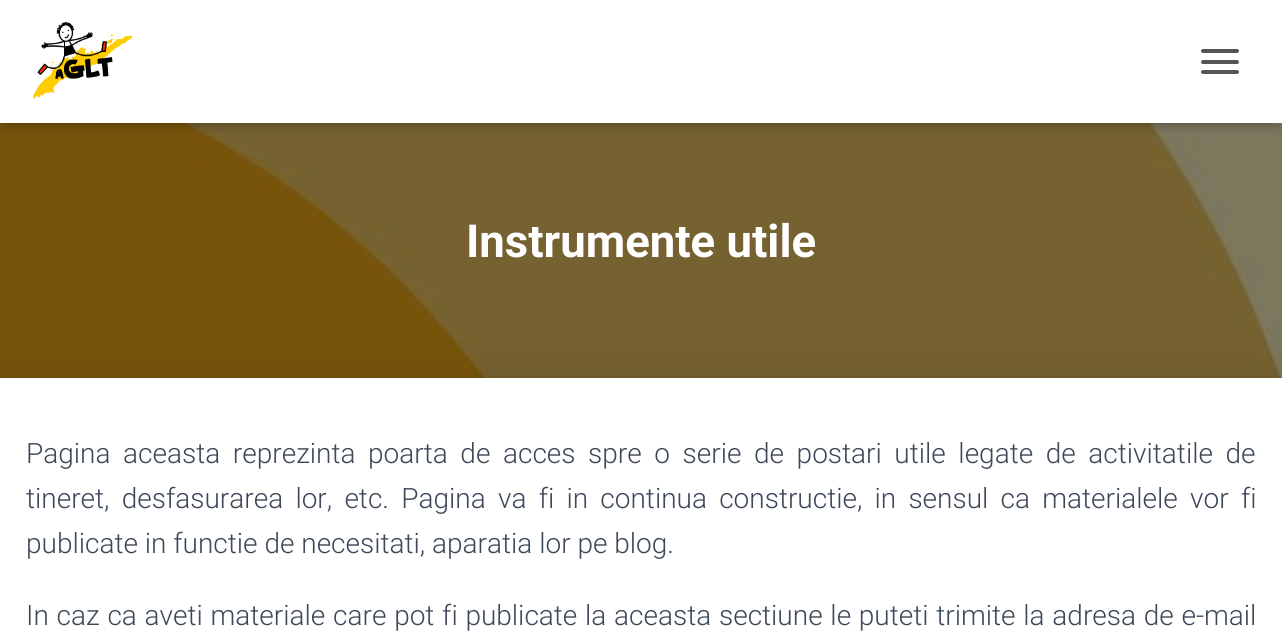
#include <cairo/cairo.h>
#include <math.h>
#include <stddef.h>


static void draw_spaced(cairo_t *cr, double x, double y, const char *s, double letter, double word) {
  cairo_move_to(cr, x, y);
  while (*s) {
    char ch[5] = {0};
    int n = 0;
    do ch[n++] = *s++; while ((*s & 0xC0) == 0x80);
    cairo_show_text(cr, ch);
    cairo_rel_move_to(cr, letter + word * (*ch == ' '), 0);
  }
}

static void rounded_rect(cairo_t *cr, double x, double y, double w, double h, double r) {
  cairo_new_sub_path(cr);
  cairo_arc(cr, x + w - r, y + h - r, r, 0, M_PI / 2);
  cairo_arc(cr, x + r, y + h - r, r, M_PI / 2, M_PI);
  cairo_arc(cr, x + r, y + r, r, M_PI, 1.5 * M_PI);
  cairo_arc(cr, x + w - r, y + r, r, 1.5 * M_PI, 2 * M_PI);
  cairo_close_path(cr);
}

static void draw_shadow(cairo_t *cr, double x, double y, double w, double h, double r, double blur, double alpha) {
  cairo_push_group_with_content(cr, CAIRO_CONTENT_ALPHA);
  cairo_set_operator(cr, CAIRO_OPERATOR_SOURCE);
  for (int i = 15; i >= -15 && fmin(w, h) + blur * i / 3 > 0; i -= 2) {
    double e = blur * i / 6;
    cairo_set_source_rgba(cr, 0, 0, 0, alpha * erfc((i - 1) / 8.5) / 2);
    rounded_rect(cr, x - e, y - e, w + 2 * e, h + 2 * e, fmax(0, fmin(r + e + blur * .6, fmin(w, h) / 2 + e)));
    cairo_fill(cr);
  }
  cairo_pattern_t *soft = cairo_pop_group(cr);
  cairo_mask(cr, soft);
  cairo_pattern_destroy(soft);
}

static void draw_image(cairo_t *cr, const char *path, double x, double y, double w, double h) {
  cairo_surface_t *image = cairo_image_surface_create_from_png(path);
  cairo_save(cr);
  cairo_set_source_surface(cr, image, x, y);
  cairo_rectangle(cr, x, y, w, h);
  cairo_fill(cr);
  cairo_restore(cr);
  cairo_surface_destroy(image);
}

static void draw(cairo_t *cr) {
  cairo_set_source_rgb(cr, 1, 1, 1);
  cairo_paint(cr);
  draw_image(cr, "images/1.png", 0, 123, 1282, 255);
  cairo_set_source_rgba(cr, 0, 0, 0, 0.5);
  cairo_rectangle(cr, 0, 123, 1282, 255);
  cairo_fill(cr);
  cairo_set_source_rgb(cr, 0, 0, 0);
  draw_shadow(cr, 4, 11, 1275, 115, 0, 4.5, 0.1);
  draw_shadow(cr, 0, 2, 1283, 122, 0, 9, 0.12);
  draw_shadow(cr, 11, 12, 1261, 102, 0, 9, 0.42);
  cairo_set_source_rgb(cr, 1, 1, 1);
  cairo_rectangle(cr, 0, 0, 1282, 123);
  cairo_fill(cr);
  draw_image(cr, "images/2.png", 33, 21, 100, 79);
  cairo_set_source_rgb(cr, 85 / 255.0, 85 / 255.0, 85 / 255.0);
  rounded_rect(cr, 1201, 49, 38, 4, 2);
  cairo_fill(cr);
  rounded_rect(cr, 1201, 60, 38, 4, 2);
  cairo_fill(cr);
  rounded_rect(cr, 1201, 70, 38, 4, 2);
  cairo_fill(cr);
  cairo_set_source_rgb(cr, 0, 0, 0);
  draw_shadow(cr, -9, 380, 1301, 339, 0, 26, 0.12);
  cairo_set_source_rgb(cr, 1, 1, 1);
  cairo_rectangle(cr, 0, 378, 1282, 263);
  cairo_fill(cr);
  cairo_select_font_face(cr, "Roboto", CAIRO_FONT_SLANT_NORMAL, CAIRO_FONT_WEIGHT_BOLD);
  cairo_set_font_size(cr, 45.5);
  cairo_move_to(cr, 466, 257);
  cairo_show_text(cr, "Instrumente utile");
  cairo_select_font_face(cr, "Roboto Light", CAIRO_FONT_SLANT_NORMAL, CAIRO_FONT_WEIGHT_NORMAL);
  cairo_set_font_size(cr, 28);
  cairo_set_source_rgb(cr, 60 / 255.0, 72 / 255.0, 88 / 255.0);
  draw_spaced(cr, 26, 463, "Pagina aceasta reprezinta poarta de acces spre o serie de postari utile legate de activitatile de", 0, 5.75);
  draw_spaced(cr, 26, 508, "tineret, desfasurarea lor, etc. Pagina va fi in continua constructie, in sensul ca materialele vor fi", 0, 5.4);
  cairo_move_to(cr, 26, 553);
  cairo_show_text(cr, "publicate in functie de necesitati, aparatia lor pe blog.");
  draw_spaced(cr, 26, 625, "In caz ca aveti materiale care pot fi publicate la aceasta sectiune le puteti trimite la adresa de e-mail", 0, 0.9);
}

int main(void) {
  cairo_surface_t *surface = cairo_image_surface_create(CAIRO_FORMAT_RGB24, 1282, 641);
  cairo_t *cr = cairo_create(surface);
  cairo_font_options_t *options = cairo_font_options_create();
  cairo_font_options_set_hint_metrics(options, CAIRO_HINT_METRICS_OFF);
  cairo_font_options_set_hint_style(options, CAIRO_HINT_STYLE_NONE);
  cairo_set_font_options(cr, options);
  cairo_set_miter_limit(cr, 4);
  draw(cr);
  cairo_surface_write_to_png(surface, "out.png");
  cairo_font_options_destroy(options);
  cairo_destroy(cr);
  cairo_surface_destroy(surface);
  return 0;
}
